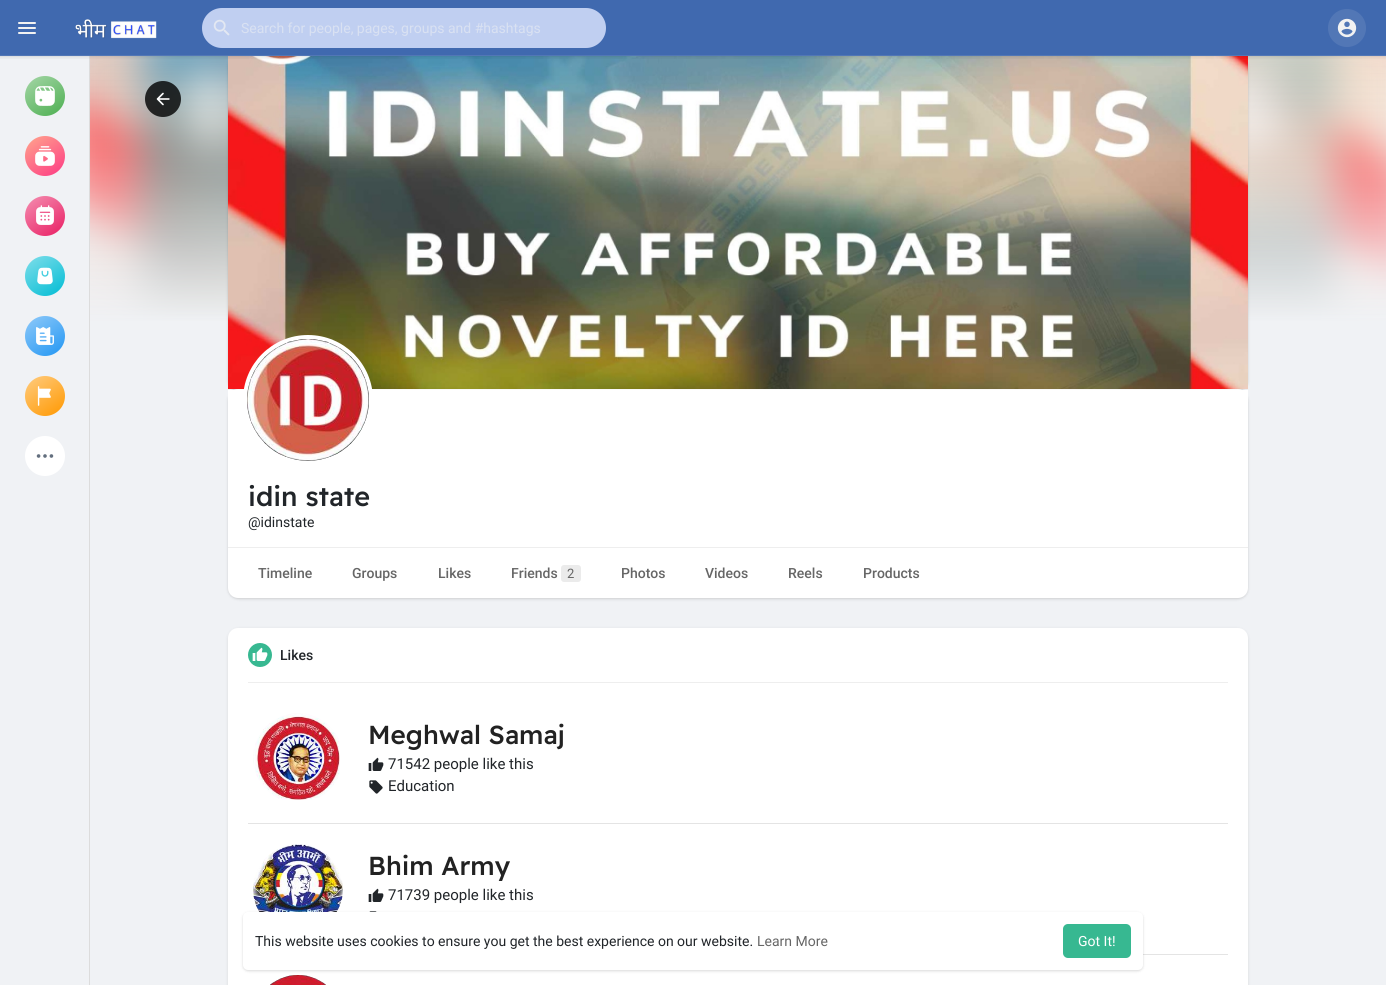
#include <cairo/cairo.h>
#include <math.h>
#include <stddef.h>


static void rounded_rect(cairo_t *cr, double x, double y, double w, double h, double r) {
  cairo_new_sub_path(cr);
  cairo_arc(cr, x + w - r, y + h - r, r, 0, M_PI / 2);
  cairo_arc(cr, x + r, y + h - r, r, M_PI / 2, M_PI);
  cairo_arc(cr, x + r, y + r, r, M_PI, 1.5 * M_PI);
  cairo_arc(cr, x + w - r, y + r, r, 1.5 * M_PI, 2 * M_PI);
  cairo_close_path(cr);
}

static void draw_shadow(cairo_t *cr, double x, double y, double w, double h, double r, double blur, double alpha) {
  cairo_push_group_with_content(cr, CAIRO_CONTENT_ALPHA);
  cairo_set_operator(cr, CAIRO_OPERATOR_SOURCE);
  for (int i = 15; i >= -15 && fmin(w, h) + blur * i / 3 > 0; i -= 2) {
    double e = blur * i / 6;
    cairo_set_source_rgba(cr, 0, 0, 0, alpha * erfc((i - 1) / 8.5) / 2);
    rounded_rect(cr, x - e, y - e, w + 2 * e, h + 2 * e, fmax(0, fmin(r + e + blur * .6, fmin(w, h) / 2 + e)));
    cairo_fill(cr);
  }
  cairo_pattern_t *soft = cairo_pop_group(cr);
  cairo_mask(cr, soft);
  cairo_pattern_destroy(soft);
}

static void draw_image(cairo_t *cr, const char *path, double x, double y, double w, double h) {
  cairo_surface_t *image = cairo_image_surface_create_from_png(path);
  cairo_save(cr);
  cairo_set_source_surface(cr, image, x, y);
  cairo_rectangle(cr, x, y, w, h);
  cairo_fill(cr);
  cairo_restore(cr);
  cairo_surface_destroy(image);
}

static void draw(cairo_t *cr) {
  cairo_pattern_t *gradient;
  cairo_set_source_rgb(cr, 240 / 255.0, 242 / 255.0, 245 / 255.0);
  cairo_paint(cr);
  draw_image(cr, "images/14.png", 90, 56, 1296, 265);
  gradient = cairo_pattern_create_linear(738, 56, 738, 390);
  cairo_pattern_add_color_stop_rgba(gradient, 0, 1, 1, 1, 0.1);
  cairo_pattern_add_color_stop_rgba(gradient, 0.8, 240 / 255.0, 242 / 255.0, 245 / 255.0, 1);
  cairo_pattern_add_color_stop_rgba(gradient, 1, 240 / 255.0, 242 / 255.0, 245 / 255.0, 1);
  cairo_set_source(cr, gradient);
  cairo_pattern_destroy(gradient);
  cairo_rectangle(cr, 90, 56, 1296, 265);
  cairo_fill(cr);
  cairo_set_source_rgb(cr, 0, 0, 0);
  draw_shadow(cr, 228, 57, 1020, 334, 10, 1, 0.06);
  draw_shadow(cr, 228, 57, 1020, 334, 10, 1.5, 0.1);
  cairo_set_source_rgb(cr, 64 / 255.0, 105 / 255.0, 175 / 255.0);
  cairo_rectangle(cr, 0, 0, 1386, 56);
  cairo_fill(cr);
  draw_image(cr, "images/1.png", 18, 22, 18, 12);
  draw_image(cr, "images/2.png", 75, 19, 82, 20);
  cairo_set_source_rgb(cr, 192 / 255.0, 207 / 255.0, 241 / 255.0);
  rounded_rect(cr, 202, 8, 404, 40, 20);
  cairo_fill(cr);
  draw_image(cr, "images/3.png", 213, 19, 17, 17);
  cairo_set_source_rgb(cr, 220 / 255.0, 220 / 255.0, 220 / 255.0);
  cairo_rectangle(cr, 89, 56, 1, 929);
  cairo_fill(cr);
  cairo_set_source_rgb(cr, 1, 1, 1);
  rounded_rect(cr, 228, 56, 1020, 334, 10);
  cairo_fill(cr);
  draw_image(cr, "images/13.png", 228, 56, 1020, 333);
  draw_image(cr, "images/4.png", 0, 55, 1386, 4);
  cairo_set_source_rgb(cr, 82 / 255.0, 119 / 255.0, 182 / 255.0);
  cairo_arc(cr, 1347, 28, 19, 0, 2 * M_PI);
  cairo_fill(cr);
  draw_image(cr, "images/5.png", 1337, 18, 20, 20);
  gradient = cairo_pattern_create_linear(29, 73, 61, 119);
  cairo_pattern_add_color_stop_rgba(gradient, 0, 165 / 255.0, 214 / 255.0, 167 / 255.0, 1);
  cairo_pattern_add_color_stop_rgba(gradient, 1, 76 / 255.0, 175 / 255.0, 80 / 255.0, 1);
  cairo_set_source(cr, gradient);
  cairo_pattern_destroy(gradient);
  cairo_arc(cr, 45, 96, 20, 0, 2 * M_PI);
  cairo_fill(cr);
  draw_image(cr, "images/6.png", 35, 86, 20, 20);
  gradient = cairo_pattern_create_linear(29, 133, 61, 179);
  cairo_pattern_add_color_stop_rgba(gradient, 0, 1, 166 / 255.0, 141 / 255.0, 1);
  cairo_pattern_add_color_stop_rgba(gradient, 1, 253 / 255.0, 58 / 255.0, 132 / 255.0, 1);
  cairo_set_source(cr, gradient);
  cairo_pattern_destroy(gradient);
  cairo_arc(cr, 45, 156, 20, 0, 2 * M_PI);
  cairo_fill(cr);
  draw_image(cr, "images/7.png", 35, 146, 20, 20);
  gradient = cairo_pattern_create_linear(29, 193, 61, 239);
  cairo_pattern_add_color_stop_rgba(gradient, 0, 244 / 255.0, 143 / 255.0, 177 / 255.0, 1);
  cairo_pattern_add_color_stop_rgba(gradient, 1, 233 / 255.0, 30 / 255.0, 99 / 255.0, 1);
  cairo_set_source(cr, gradient);
  cairo_pattern_destroy(gradient);
  cairo_arc(cr, 45, 216, 20, 0, 2 * M_PI);
  cairo_fill(cr);
  draw_image(cr, "images/8.png", 36, 205, 18, 20);
  gradient = cairo_pattern_create_linear(29, 253, 61, 299);
  cairo_pattern_add_color_stop_rgba(gradient, 0, 128 / 255.0, 222 / 255.0, 234 / 255.0, 1);
  cairo_pattern_add_color_stop_rgba(gradient, 1, 0, 188 / 255.0, 212 / 255.0, 1);
  cairo_set_source(cr, gradient);
  cairo_pattern_destroy(gradient);
  cairo_arc(cr, 45, 276, 20, 0, 2 * M_PI);
  cairo_fill(cr);
  draw_image(cr, "images/9.png", 37, 267, 16, 18);
  gradient = cairo_pattern_create_linear(29, 313, 61, 359);
  cairo_pattern_add_color_stop_rgba(gradient, 0, 144 / 255.0, 202 / 255.0, 249 / 255.0, 1);
  cairo_pattern_add_color_stop_rgba(gradient, 1, 33 / 255.0, 150 / 255.0, 243 / 255.0, 1);
  cairo_set_source(cr, gradient);
  cairo_pattern_destroy(gradient);
  cairo_arc(cr, 45, 336, 20, 0, 2 * M_PI);
  cairo_fill(cr);
  draw_image(cr, "images/10.png", 36, 327, 18, 18);
  gradient = cairo_pattern_create_linear(29, 373, 61, 419);
  cairo_pattern_add_color_stop_rgba(gradient, 0, 1, 204 / 255.0, 128 / 255.0, 1);
  cairo_pattern_add_color_stop_rgba(gradient, 1, 1, 152 / 255.0, 0, 1);
  cairo_set_source(cr, gradient);
  cairo_pattern_destroy(gradient);
  cairo_arc(cr, 45, 396, 20, 0, 2 * M_PI);
  cairo_fill(cr);
  draw_image(cr, "images/11.png", 37, 386, 14, 20);
  cairo_set_source_rgb(cr, 1, 1, 1);
  cairo_arc(cr, 45, 456, 20, 0, 2 * M_PI);
  cairo_fill(cr);
  draw_image(cr, "images/12.png", 36, 454, 18, 4);
  cairo_set_source_rgba(cr, 0, 0, 0, 0.8);
  cairo_arc(cr, 163, 99, 18, 0, 2 * M_PI);
  cairo_fill(cr);
  draw_image(cr, "images/15.png", 156, 92, 14, 14);
  cairo_set_source_rgb(cr, 0, 0, 0);
  draw_shadow(cr, 228, 391, 1020, 208, 10, 1, 0.06);
  draw_shadow(cr, 228, 391, 1020, 208, 10, 1.5, 0.1);
  cairo_set_source_rgb(cr, 1, 1, 1);
  cairo_new_path(cr);
  cairo_move_to(cr, 228, 390);
  cairo_line_to(cr, 1248, 390);
  cairo_line_to(cr, 1248, 588);
  cairo_curve_to(cr, 1248, 593.5, 1243.5, 598, 1238, 598);
  cairo_line_to(cr, 238, 598);
  cairo_curve_to(cr, 232.5, 598, 228, 593.5, 228, 588);
  cairo_close_path(cr);
  cairo_fill(cr);
  cairo_arc(cr, 308, 400, 65, 0, 2 * M_PI);
  cairo_fill(cr);
  draw_image(cr, "images/16.png", 247, 339, 122, 122);
  cairo_set_source_rgb(cr, 238 / 255.0, 238 / 255.0, 238 / 255.0);
  cairo_rectangle(cr, 228, 547, 1020, 1);
  cairo_fill(cr);
  cairo_set_source_rgb(cr, 235 / 255.0, 235 / 255.0, 235 / 255.0);
  rounded_rect(cr, 561, 565, 20, 17, 3);
  cairo_fill(cr);
  cairo_set_source_rgb(cr, 0, 0, 0);
  draw_shadow(cr, 228, 629, 1020, 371, 10, 1.5, 0.1);
  cairo_set_source_rgb(cr, 1, 1, 1);
  rounded_rect(cr, 228, 628, 1020, 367, 10);
  cairo_fill(cr);
  cairo_set_source_rgb(cr, 238 / 255.0, 238 / 255.0, 238 / 255.0);
  cairo_rectangle(cr, 248, 682, 980, 1);
  cairo_fill(cr);
  cairo_set_source_rgb(cr, 55 / 255.0, 184 / 255.0, 145 / 255.0);
  cairo_arc(cr, 260, 655, 12, 0, 2 * M_PI);
  cairo_fill(cr);
  draw_image(cr, "images/17.png", 252, 647, 16, 14);
  cairo_set_source_rgb(cr, 228 / 255.0, 228 / 255.0, 228 / 255.0);
  cairo_rectangle(cr, 248, 823, 980, 1);
  cairo_fill(cr);
  draw_image(cr, "images/18.png", 253, 713, 87, 87);
  draw_image(cr, "images/19.png", 368, 757, 16, 14);
  draw_image(cr, "images/20.png", 369, 780, 14, 14);
  cairo_rectangle(cr, 1143, 954, 85, 1);
  cairo_fill(cr);
  draw_image(cr, "images/21.png", 253, 844, 90, 68);
  draw_image(cr, "images/19.png", 368, 888, 16, 14);
  draw_image(cr, "images/22.png", 369, 911, 8, 1);
  draw_image(cr, "images/23.png", 270, 975, 56, 10);
  cairo_set_source_rgb(cr, 0, 0, 0);
  draw_shadow(cr, 243, 913, 900, 58, 5, 1, 0.06);
  draw_shadow(cr, 243, 913, 900, 58, 5, 1.5, 0.1);
  cairo_set_source_rgb(cr, 1, 1, 1);
  rounded_rect(cr, 243, 912, 900, 58, 5);
  cairo_fill(cr);
  cairo_set_source_rgb(cr, 55 / 255.0, 184 / 255.0, 145 / 255.0);
  rounded_rect(cr, 1063, 924, 68, 34, 5);
  cairo_fill(cr);
  cairo_select_font_face(cr, "Roboto", CAIRO_FONT_SLANT_NORMAL, CAIRO_FONT_WEIGHT_NORMAL);
  cairo_set_font_size(cr, 14);
  cairo_set_source_rgb(cr, 217 / 255.0, 225 / 255.0, 242 / 255.0);
  cairo_move_to(cr, 241, 33);
  cairo_show_text(cr, "Search for people, pages, groups and #hashtags");
  cairo_select_font_face(cr, "Readex Pro Medium", CAIRO_FONT_SLANT_NORMAL, CAIRO_FONT_WEIGHT_NORMAL);
  cairo_set_font_size(cr, 27);
  cairo_set_source_rgb(cr, 33 / 255.0, 37 / 255.0, 41 / 255.0);
  cairo_move_to(cr, 248, 506);
  cairo_show_text(cr, "idin state");
  cairo_select_font_face(cr, "Roboto", CAIRO_FONT_SLANT_NORMAL, CAIRO_FONT_WEIGHT_NORMAL);
  cairo_set_font_size(cr, 14);
  cairo_move_to(cr, 248, 527);
  cairo_show_text(cr, "@idinstate");
  cairo_select_font_face(cr, "Roboto Medium", CAIRO_FONT_SLANT_NORMAL, CAIRO_FONT_WEIGHT_NORMAL);
  cairo_set_source_rgb(cr, 102 / 255.0, 102 / 255.0, 102 / 255.0);
  cairo_move_to(cr, 258, 578);
  cairo_show_text(cr, "Timeline");
  cairo_move_to(cr, 352, 578);
  cairo_show_text(cr, "Groups");
  cairo_move_to(cr, 438, 578);
  cairo_show_text(cr, "Likes");
  cairo_move_to(cr, 511, 578);
  cairo_show_text(cr, "Friends");
  cairo_select_font_face(cr, "Roboto", CAIRO_FONT_SLANT_NORMAL, CAIRO_FONT_WEIGHT_NORMAL);
  cairo_set_font_size(cr, 13);
  cairo_move_to(cr, 567, 578);
  cairo_show_text(cr, "2");
  cairo_select_font_face(cr, "Roboto Medium", CAIRO_FONT_SLANT_NORMAL, CAIRO_FONT_WEIGHT_NORMAL);
  cairo_set_font_size(cr, 14);
  cairo_move_to(cr, 621, 578);
  cairo_show_text(cr, "Photos");
  cairo_move_to(cr, 705, 578);
  cairo_show_text(cr, "Videos");
  cairo_move_to(cr, 788, 578);
  cairo_show_text(cr, "Reels");
  cairo_move_to(cr, 863, 578);
  cairo_show_text(cr, "Products");
  cairo_set_source_rgb(cr, 33 / 255.0, 37 / 255.0, 41 / 255.0);
  cairo_move_to(cr, 280, 660);
  cairo_show_text(cr, "Likes");
  cairo_select_font_face(cr, "Readex Pro Medium", CAIRO_FONT_SLANT_NORMAL, CAIRO_FONT_WEIGHT_NORMAL);
  cairo_set_font_size(cr, 26);
  cairo_set_source_rgb(cr, 34 / 255.0, 34 / 255.0, 34 / 255.0);
  cairo_move_to(cr, 368, 744);
  cairo_show_text(cr, "Meghwal Samaj");
  cairo_select_font_face(cr, "Roboto", CAIRO_FONT_SLANT_NORMAL, CAIRO_FONT_WEIGHT_NORMAL);
  cairo_set_font_size(cr, 15);
  cairo_set_source_rgb(cr, 33 / 255.0, 37 / 255.0, 41 / 255.0);
  cairo_move_to(cr, 388, 769);
  cairo_show_text(cr, "71542 people like this");
  cairo_move_to(cr, 388, 791);
  cairo_show_text(cr, "Education");
  cairo_select_font_face(cr, "Readex Pro Medium", CAIRO_FONT_SLANT_NORMAL, CAIRO_FONT_WEIGHT_NORMAL);
  cairo_set_font_size(cr, 26);
  cairo_set_source_rgb(cr, 34 / 255.0, 34 / 255.0, 34 / 255.0);
  cairo_move_to(cr, 368, 875);
  cairo_show_text(cr, "Bhim Army");
  cairo_select_font_face(cr, "Roboto", CAIRO_FONT_SLANT_NORMAL, CAIRO_FONT_WEIGHT_NORMAL);
  cairo_set_font_size(cr, 15);
  cairo_set_source_rgb(cr, 33 / 255.0, 37 / 255.0, 41 / 255.0);
  cairo_move_to(cr, 388, 900);
  cairo_show_text(cr, "71739 people like this");
  cairo_set_font_size(cr, 14);
  cairo_move_to(cr, 255, 946);
  cairo_show_text(cr, "This website uses cookies to ensure you get the best experience on our website.");
  cairo_set_source_rgb(cr, 102 / 255.0, 102 / 255.0, 102 / 255.0);
  cairo_move_to(cr, 757, 946);
  cairo_show_text(cr, "Learn More");
  cairo_set_source_rgb(cr, 1, 1, 1);
  cairo_move_to(cr, 1078, 946);
  cairo_show_text(cr, "Got It!");
}

int main(void) {
  cairo_surface_t *surface = cairo_image_surface_create(CAIRO_FORMAT_RGB24, 1386, 985);
  cairo_t *cr = cairo_create(surface);
  cairo_font_options_t *options = cairo_font_options_create();
  cairo_font_options_set_hint_metrics(options, CAIRO_HINT_METRICS_OFF);
  cairo_font_options_set_hint_style(options, CAIRO_HINT_STYLE_NONE);
  cairo_set_font_options(cr, options);
  cairo_set_miter_limit(cr, 4);
  draw(cr);
  cairo_surface_write_to_png(surface, "out.png");
  cairo_font_options_destroy(options);
  cairo_destroy(cr);
  cairo_surface_destroy(surface);
  return 0;
}
